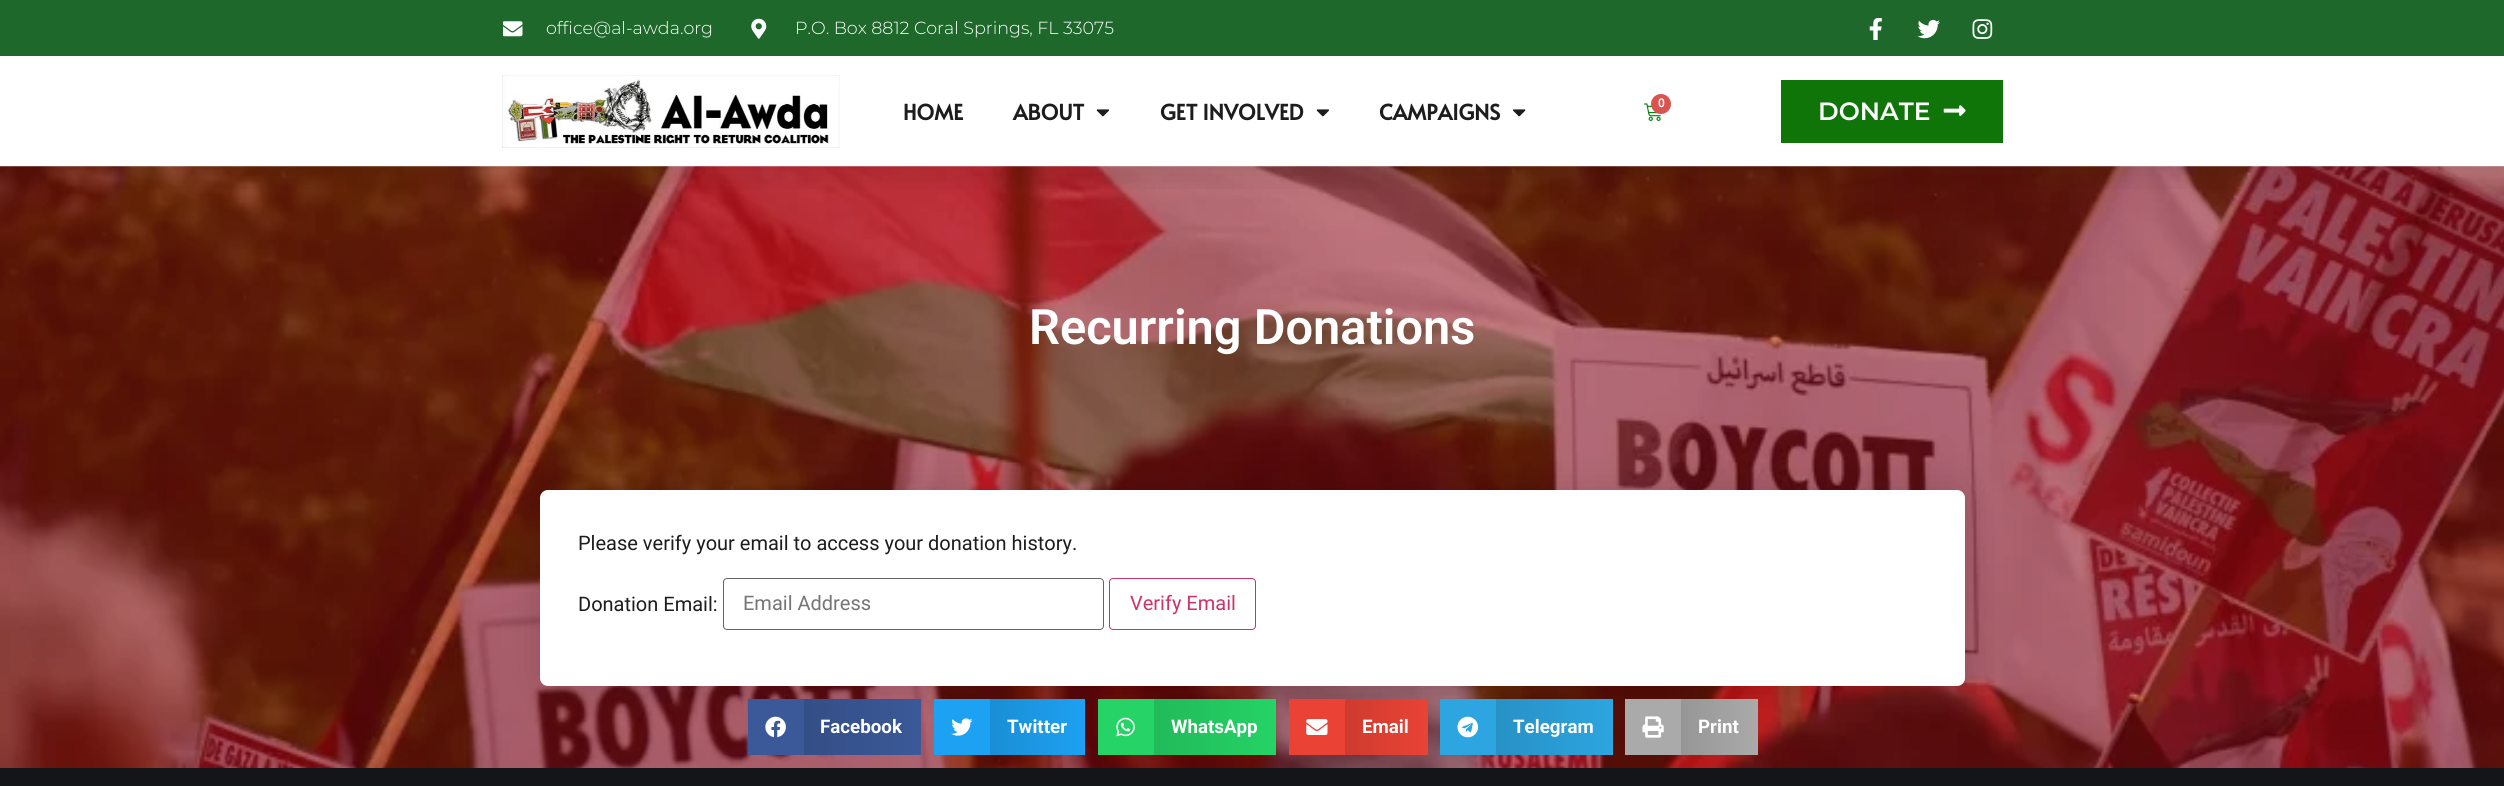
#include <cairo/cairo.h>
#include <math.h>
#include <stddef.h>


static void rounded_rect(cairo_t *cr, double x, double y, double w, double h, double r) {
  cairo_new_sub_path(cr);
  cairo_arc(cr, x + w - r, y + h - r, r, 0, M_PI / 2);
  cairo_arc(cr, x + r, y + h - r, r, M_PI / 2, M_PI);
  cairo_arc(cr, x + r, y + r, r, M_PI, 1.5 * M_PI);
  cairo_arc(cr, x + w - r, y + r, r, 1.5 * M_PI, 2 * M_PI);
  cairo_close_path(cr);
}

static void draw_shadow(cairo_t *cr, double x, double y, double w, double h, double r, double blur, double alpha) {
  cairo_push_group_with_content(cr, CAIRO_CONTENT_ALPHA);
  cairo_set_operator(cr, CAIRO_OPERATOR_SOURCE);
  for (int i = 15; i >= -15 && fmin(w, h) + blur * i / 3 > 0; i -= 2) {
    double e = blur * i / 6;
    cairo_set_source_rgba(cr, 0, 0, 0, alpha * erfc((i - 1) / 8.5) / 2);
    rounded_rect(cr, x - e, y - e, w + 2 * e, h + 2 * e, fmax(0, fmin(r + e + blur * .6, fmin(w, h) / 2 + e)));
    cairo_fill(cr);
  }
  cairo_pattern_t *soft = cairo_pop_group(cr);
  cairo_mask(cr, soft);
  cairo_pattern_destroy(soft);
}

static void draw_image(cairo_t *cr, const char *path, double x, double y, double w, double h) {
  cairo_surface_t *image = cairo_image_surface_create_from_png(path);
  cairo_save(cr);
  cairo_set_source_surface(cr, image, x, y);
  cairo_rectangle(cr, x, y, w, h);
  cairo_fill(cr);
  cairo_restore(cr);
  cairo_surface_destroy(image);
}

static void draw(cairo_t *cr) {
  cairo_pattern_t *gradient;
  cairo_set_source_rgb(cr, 1, 1, 1);
  cairo_paint(cr);
  draw_image(cr, "images/11.png", 0, 166, 2504, 602);
  cairo_save(cr);
  cairo_rectangle(cr, 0, 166, 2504, 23);
  cairo_clip(cr);
  cairo_set_source_rgb(cr, 0, 0, 0);
  draw_shadow(cr, 0, 6, 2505, 167, 0, 19, 0.1);
  cairo_restore(cr);
  cairo_set_source_rgb(cr, 29 / 255.0, 104 / 255.0, 42 / 255.0);
  cairo_rectangle(cr, 0, 0, 2504, 56);
  cairo_fill(cr);
  draw_image(cr, "images/1.png", 503, 21, 20, 16);
  draw_image(cr, "images/2.png", 751, 18, 16, 21);
  draw_image(cr, "images/3.png", 1869, 18, 13, 22);
  draw_image(cr, "images/4.png", 1917, 19, 23, 20);
  draw_image(cr, "images/5.png", 1972, 19, 21, 20);
  draw_image(cr, "images/6.png", 502, 75, 338, 73);
  draw_image(cr, "images/7.png", 1096, 109, 13, 8);
  draw_image(cr, "images/7.png", 1316, 109, 13, 8);
  draw_image(cr, "images/8.png", 1513, 109, 13, 8);
  draw_image(cr, "images/9.png", 1644, 103, 17, 18);
  cairo_set_source_rgb(cr, 217 / 255.0, 83 / 255.0, 79 / 255.0);
  cairo_arc(cr, 1661, 104, 10, 0, 2 * M_PI);
  cairo_fill(cr);
  cairo_set_source_rgb(cr, 15 / 255.0, 117 / 255.0, 8 / 255.0);
  cairo_rectangle(cr, 1781, 80, 222, 63);
  cairo_fill(cr);
  draw_image(cr, "images/10.png", 1943, 105, 23, 11);
  cairo_set_source_rgb(cr, 0, 0, 0);
  draw_shadow(cr, 540, 490, 1425, 196, 8, 19, 0.13);
  cairo_set_source_rgb(cr, 1, 1, 1);
  rounded_rect(cr, 540, 490, 1425, 196, 8);
  cairo_fill(cr);
  rounded_rect(cr, 723.5, 578.5, 380, 51, 3.5);
  cairo_set_source_rgb(cr, 102 / 255.0, 102 / 255.0, 102 / 255.0);
  cairo_set_line_width(cr, 1);
  cairo_stroke(cr);
  rounded_rect(cr, 1109.5, 578.5, 146, 51, 3.5);
  cairo_set_source_rgb(cr, 204 / 255.0, 51 / 255.0, 102 / 255.0);
  cairo_stroke(cr);
  cairo_set_source_rgb(cr, 59 / 255.0, 89 / 255.0, 152 / 255.0);
  cairo_rectangle(cr, 748, 699, 56, 56);
  cairo_fill(cr);
  draw_image(cr, "images/12.png", 765, 716, 21, 22);
  gradient = cairo_pattern_create_linear(804, 727, 921, 727);
  cairo_pattern_add_color_stop_rgba(gradient, 0, 52 / 255.0, 78 / 255.0, 134 / 255.0, 1);
  cairo_pattern_add_color_stop_rgba(gradient, 1, 59 / 255.0, 89 / 255.0, 152 / 255.0, 1);
  cairo_set_source(cr, gradient);
  cairo_pattern_destroy(gradient);
  cairo_rectangle(cr, 804, 699, 117, 56);
  cairo_fill(cr);
  cairo_set_source_rgb(cr, 29 / 255.0, 161 / 255.0, 242 / 255.0);
  cairo_rectangle(cr, 934, 699, 56, 56);
  cairo_fill(cr);
  draw_image(cr, "images/13.png", 951, 718, 22, 18);
  gradient = cairo_pattern_create_linear(990, 727, 1085, 727);
  cairo_pattern_add_color_stop_rgba(gradient, 0, 26 / 255.0, 142 / 255.0, 213 / 255.0, 1);
  cairo_pattern_add_color_stop_rgba(gradient, 1, 29 / 255.0, 161 / 255.0, 242 / 255.0, 1);
  cairo_set_source(cr, gradient);
  cairo_pattern_destroy(gradient);
  cairo_rectangle(cr, 990, 699, 95, 56);
  cairo_fill(cr);
  cairo_set_source_rgb(cr, 37 / 255.0, 211 / 255.0, 102 / 255.0);
  cairo_rectangle(cr, 1098, 699, 56, 56);
  cairo_fill(cr);
  draw_image(cr, "images/14.png", 1116, 717, 19, 20);
  gradient = cairo_pattern_create_linear(1154, 727, 1276, 727);
  cairo_pattern_add_color_stop_rgba(gradient, 0, 33 / 255.0, 186 / 255.0, 90 / 255.0, 1);
  cairo_pattern_add_color_stop_rgba(gradient, 1, 37 / 255.0, 211 / 255.0, 102 / 255.0, 1);
  cairo_set_source(cr, gradient);
  cairo_pattern_destroy(gradient);
  cairo_rectangle(cr, 1154, 699, 122, 56);
  cairo_fill(cr);
  cairo_set_source_rgb(cr, 234 / 255.0, 67 / 255.0, 53 / 255.0);
  cairo_rectangle(cr, 1289, 699, 56, 56);
  cairo_fill(cr);
  draw_image(cr, "images/15.png", 1306, 719, 22, 16);
  gradient = cairo_pattern_create_linear(1345, 727, 1428, 727);
  cairo_pattern_add_color_stop_rgba(gradient, 0, 206 / 255.0, 59 / 255.0, 47 / 255.0, 1);
  cairo_pattern_add_color_stop_rgba(gradient, 1, 234 / 255.0, 67 / 255.0, 53 / 255.0, 1);
  cairo_set_source(cr, gradient);
  cairo_pattern_destroy(gradient);
  cairo_rectangle(cr, 1345, 699, 83, 56);
  cairo_fill(cr);
  cairo_set_source_rgb(cr, 44 / 255.0, 165 / 255.0, 224 / 255.0);
  cairo_rectangle(cr, 1440, 699, 56, 56);
  cairo_fill(cr);
  draw_image(cr, "images/16.png", 1457, 716, 22, 22);
  gradient = cairo_pattern_create_linear(1496, 727, 1613, 727);
  cairo_pattern_add_color_stop_rgba(gradient, 0, 39 / 255.0, 145 / 255.0, 197 / 255.0, 1);
  cairo_pattern_add_color_stop_rgba(gradient, 1, 44 / 255.0, 165 / 255.0, 224 / 255.0, 1);
  cairo_set_source(cr, gradient);
  cairo_pattern_destroy(gradient);
  cairo_rectangle(cr, 1496, 699, 117, 56);
  cairo_fill(cr);
  cairo_set_source_rgb(cr, 170 / 255.0, 170 / 255.0, 170 / 255.0);
  cairo_rectangle(cr, 1625, 699, 56, 56);
  cairo_fill(cr);
  draw_image(cr, "images/17.png", 1642, 716, 22, 22);
  gradient = cairo_pattern_create_linear(1681, 727, 1758, 727);
  cairo_pattern_add_color_stop_rgba(gradient, 0, 150 / 255.0, 150 / 255.0, 150 / 255.0, 1);
  cairo_pattern_add_color_stop_rgba(gradient, 1, 170 / 255.0, 170 / 255.0, 170 / 255.0, 1);
  cairo_set_source(cr, gradient);
  cairo_pattern_destroy(gradient);
  cairo_rectangle(cr, 1681, 699, 77, 56);
  cairo_fill(cr);
  cairo_set_source_rgb(cr, 20 / 255.0, 21 / 255.0, 25 / 255.0);
  cairo_rectangle(cr, 0, 768, 2504, 18);
  cairo_fill(cr);
  cairo_select_font_face(cr, "Montserrat Light", CAIRO_FONT_SLANT_NORMAL, CAIRO_FONT_WEIGHT_NORMAL);
  cairo_set_font_size(cr, 17.5);
  cairo_set_source_rgb(cr, 1, 1, 1);
  cairo_move_to(cr, 546, 34);
  cairo_show_text(cr, "office@al-awda.org");
  cairo_move_to(cr, 795, 34);
  cairo_show_text(cr, "P.O. Box 8812 Coral Springs, FL 33075");
  cairo_select_font_face(cr, "Alata", CAIRO_FONT_SLANT_NORMAL, CAIRO_FONT_WEIGHT_BOLD);
  cairo_set_font_size(cr, 21.25);
  cairo_set_source_rgb(cr, 30 / 255.0, 29 / 255.0, 29 / 255.0);
  cairo_move_to(cr, 903, 120);
  cairo_show_text(cr, "HOME");
  cairo_move_to(cr, 1013, 120);
  cairo_show_text(cr, "ABOUT");
  cairo_move_to(cr, 1160, 120);
  cairo_show_text(cr, "GET INVOLVED");
  cairo_move_to(cr, 1379, 120);
  cairo_show_text(cr, "CAMPAIGNS");
  cairo_select_font_face(cr, "Roboto SemiBold", CAIRO_FONT_SLANT_NORMAL, CAIRO_FONT_WEIGHT_NORMAL);
  cairo_set_font_size(cr, 12);
  cairo_set_source_rgb(cr, 1, 1, 1);
  cairo_move_to(cr, 1658, 107);
  cairo_show_text(cr, "0");
  cairo_select_font_face(cr, "Montserrat SemiBold", CAIRO_FONT_SLANT_NORMAL, CAIRO_FONT_WEIGHT_NORMAL);
  cairo_set_font_size(cr, 25);
  cairo_move_to(cr, 1818, 120);
  cairo_show_text(cr, "DONATE");
  cairo_select_font_face(cr, "Roboto SemiBold", CAIRO_FONT_SLANT_NORMAL, CAIRO_FONT_WEIGHT_NORMAL);
  cairo_set_font_size(cr, 48.75);
  cairo_move_to(cr, 1029, 344);
  cairo_show_text(cr, "Recurring Donations");
  cairo_select_font_face(cr, "Roboto", CAIRO_FONT_SLANT_NORMAL, CAIRO_FONT_WEIGHT_NORMAL);
  cairo_set_font_size(cr, 20);
  cairo_set_source_rgb(cr, 30 / 255.0, 29 / 255.0, 29 / 255.0);
  cairo_move_to(cr, 578, 550);
  cairo_show_text(cr, "Please verify your email to access your donation history.");
  cairo_move_to(cr, 578, 611);
  cairo_show_text(cr, "Donation Email:");
  cairo_set_source_rgb(cr, 117 / 255.0, 117 / 255.0, 117 / 255.0);
  cairo_move_to(cr, 743, 610);
  cairo_show_text(cr, "Email Address");
  cairo_set_source_rgb(cr, 204 / 255.0, 51 / 255.0, 102 / 255.0);
  cairo_move_to(cr, 1130, 610);
  cairo_show_text(cr, "Verify Email");
  cairo_select_font_face(cr, "Roboto", CAIRO_FONT_SLANT_NORMAL, CAIRO_FONT_WEIGHT_BOLD);
  cairo_set_font_size(cr, 18.75);
  cairo_set_source_rgb(cr, 1, 1, 1);
  cairo_move_to(cr, 820, 733);
  cairo_show_text(cr, "Facebook");
  cairo_move_to(cr, 1007, 733);
  cairo_show_text(cr, "Twitter");
  cairo_move_to(cr, 1171, 733);
  cairo_show_text(cr, "WhatsApp");
  cairo_move_to(cr, 1362, 733);
  cairo_show_text(cr, "Email");
  cairo_move_to(cr, 1513, 733);
  cairo_show_text(cr, "Telegram");
  cairo_move_to(cr, 1698, 733);
  cairo_show_text(cr, "Print");
}

int main(void) {
  cairo_surface_t *surface = cairo_image_surface_create(CAIRO_FORMAT_RGB24, 2504, 786);
  cairo_t *cr = cairo_create(surface);
  cairo_font_options_t *options = cairo_font_options_create();
  cairo_font_options_set_hint_metrics(options, CAIRO_HINT_METRICS_OFF);
  cairo_font_options_set_hint_style(options, CAIRO_HINT_STYLE_NONE);
  cairo_set_font_options(cr, options);
  cairo_set_miter_limit(cr, 4);
  draw(cr);
  cairo_surface_write_to_png(surface, "out.png");
  cairo_font_options_destroy(options);
  cairo_destroy(cr);
  cairo_surface_destroy(surface);
  return 0;
}
